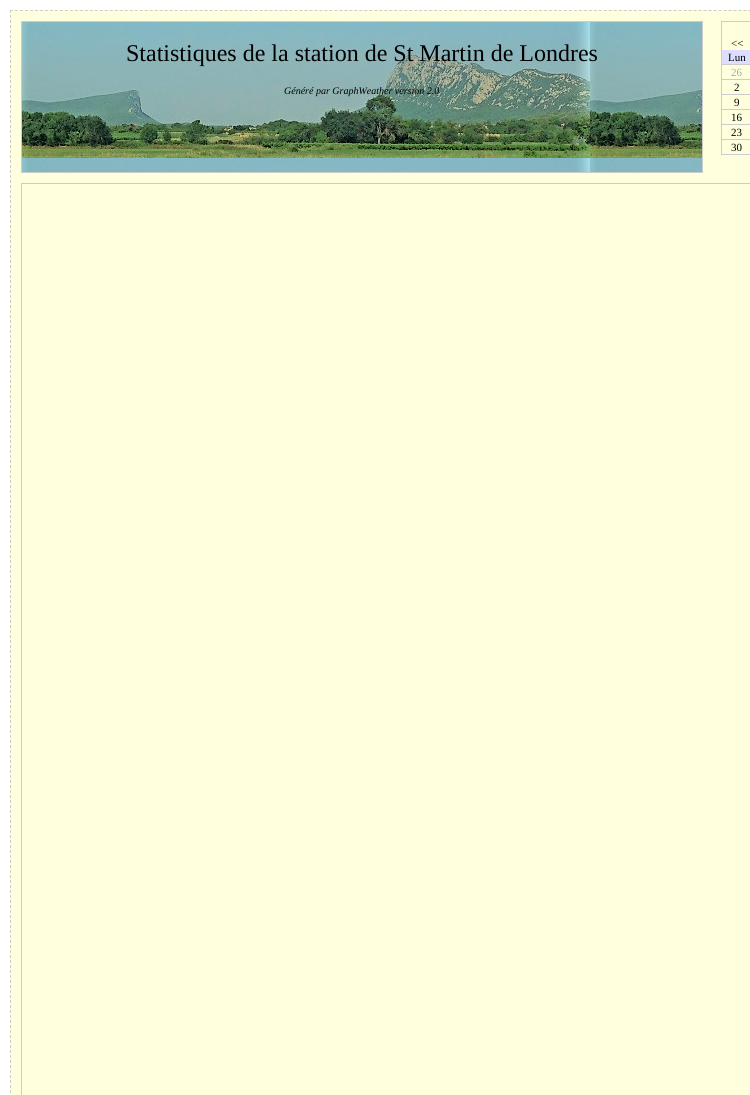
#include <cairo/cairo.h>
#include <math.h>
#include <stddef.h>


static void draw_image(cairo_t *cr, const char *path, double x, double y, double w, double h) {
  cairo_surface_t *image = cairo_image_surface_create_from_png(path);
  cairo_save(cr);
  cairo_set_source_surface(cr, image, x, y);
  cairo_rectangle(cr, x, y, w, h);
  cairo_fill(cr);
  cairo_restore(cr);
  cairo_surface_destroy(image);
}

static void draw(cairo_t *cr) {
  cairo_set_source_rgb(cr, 1, 1, 1);
  cairo_paint(cr);
  cairo_set_source_rgb(cr, 1, 1, 221 / 255.0);
  cairo_rectangle(cr, 10, 10, 740, 1085);
  cairo_fill(cr);
  cairo_new_path(cr);
  cairo_move_to(cr, 10, 10.5);
  cairo_line_to(cr, 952, 10.5);
  cairo_set_source_rgb(cr, 204 / 255.0, 204 / 255.0, 204 / 255.0);
  cairo_set_line_width(cr, 1);
  cairo_set_dash(cr, (double[]){3, 1.99}, 2, 0);
  cairo_stroke(cr);
  cairo_new_path(cr);
  cairo_move_to(cr, 10.5, 10);
  cairo_line_to(cr, 10.5, 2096);
  cairo_set_dash(cr, (double[]){3, 2}, 2, 0);
  cairo_stroke(cr);
  draw_image(cr, "images/1.png", 22, 22, 680, 150);
  cairo_rectangle(cr, 21.5, 21.5, 681, 151);
  cairo_set_dash(cr, NULL, 0, 0);
  cairo_stroke(cr);
  cairo_rectangle(cr, 721, 21, 29, 1);
  cairo_fill(cr);
  cairo_rectangle(cr, 721, 154, 29, 1);
  cairo_fill(cr);
  cairo_rectangle(cr, 721, 21, 1, 134);
  cairo_fill(cr);
  cairo_set_source_rgb(cr, 221 / 255.0, 221 / 255.0, 1);
  cairo_rectangle(cr, 722, 50, 28, 14);
  cairo_fill(cr);
  cairo_set_source_rgb(cr, 204 / 255.0, 204 / 255.0, 204 / 255.0);
  cairo_rectangle(cr, 721, 64, 29, 1);
  cairo_fill(cr);
  cairo_rectangle(cr, 721, 79, 29, 1);
  cairo_fill(cr);
  cairo_rectangle(cr, 721, 94, 29, 1);
  cairo_fill(cr);
  cairo_rectangle(cr, 721, 109, 29, 1);
  cairo_fill(cr);
  cairo_rectangle(cr, 721, 124, 29, 1);
  cairo_fill(cr);
  cairo_rectangle(cr, 721, 139, 29, 1);
  cairo_fill(cr);
  cairo_rectangle(cr, 21.5, 183.5, 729, 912);
  cairo_stroke(cr);
  cairo_select_font_face(cr, "Liberation Serif", CAIRO_FONT_SLANT_NORMAL, CAIRO_FONT_WEIGHT_NORMAL);
  cairo_set_font_size(cr, 24);
  cairo_set_source_rgb(cr, 0, 0, 0);
  cairo_move_to(cr, 126, 61);
  cairo_show_text(cr, "Statistiques de la station de St Martin de Londres");
  cairo_select_font_face(cr, "Liberation Serif", CAIRO_FONT_SLANT_ITALIC, CAIRO_FONT_WEIGHT_NORMAL);
  cairo_set_font_size(cr, 10);
  cairo_move_to(cr, 284, 94);
  cairo_show_text(cr, "Généré par GraphWeather version 2.0");
  cairo_select_font_face(cr, "Liberation Serif", CAIRO_FONT_SLANT_NORMAL, CAIRO_FONT_WEIGHT_NORMAL);
  cairo_set_font_size(cr, 11);
  cairo_move_to(cr, 731, 47);
  cairo_show_text(cr, "<<");
  cairo_move_to(cr, 728, 61);
  cairo_show_text(cr, "Lun");
  cairo_set_source_rgb(cr, 170 / 255.0, 170 / 255.0, 170 / 255.0);
  cairo_move_to(cr, 731, 76);
  cairo_show_text(cr, "26");
  cairo_set_source_rgb(cr, 0, 0, 0);
  cairo_move_to(cr, 734, 91);
  cairo_show_text(cr, "2");
  cairo_move_to(cr, 734, 106);
  cairo_show_text(cr, "9");
  cairo_move_to(cr, 731, 121);
  cairo_show_text(cr, "16");
  cairo_move_to(cr, 731, 136);
  cairo_show_text(cr, "23");
  cairo_move_to(cr, 731, 151);
  cairo_show_text(cr, "30");
}

int main(void) {
  cairo_surface_t *surface = cairo_image_surface_create(CAIRO_FORMAT_RGB24, 750, 1095);
  cairo_t *cr = cairo_create(surface);
  cairo_font_options_t *options = cairo_font_options_create();
  cairo_font_options_set_hint_metrics(options, CAIRO_HINT_METRICS_OFF);
  cairo_font_options_set_hint_style(options, CAIRO_HINT_STYLE_NONE);
  cairo_set_font_options(cr, options);
  cairo_set_miter_limit(cr, 4);
  draw(cr);
  cairo_surface_write_to_png(surface, "out.png");
  cairo_font_options_destroy(options);
  cairo_destroy(cr);
  cairo_surface_destroy(surface);
  return 0;
}
